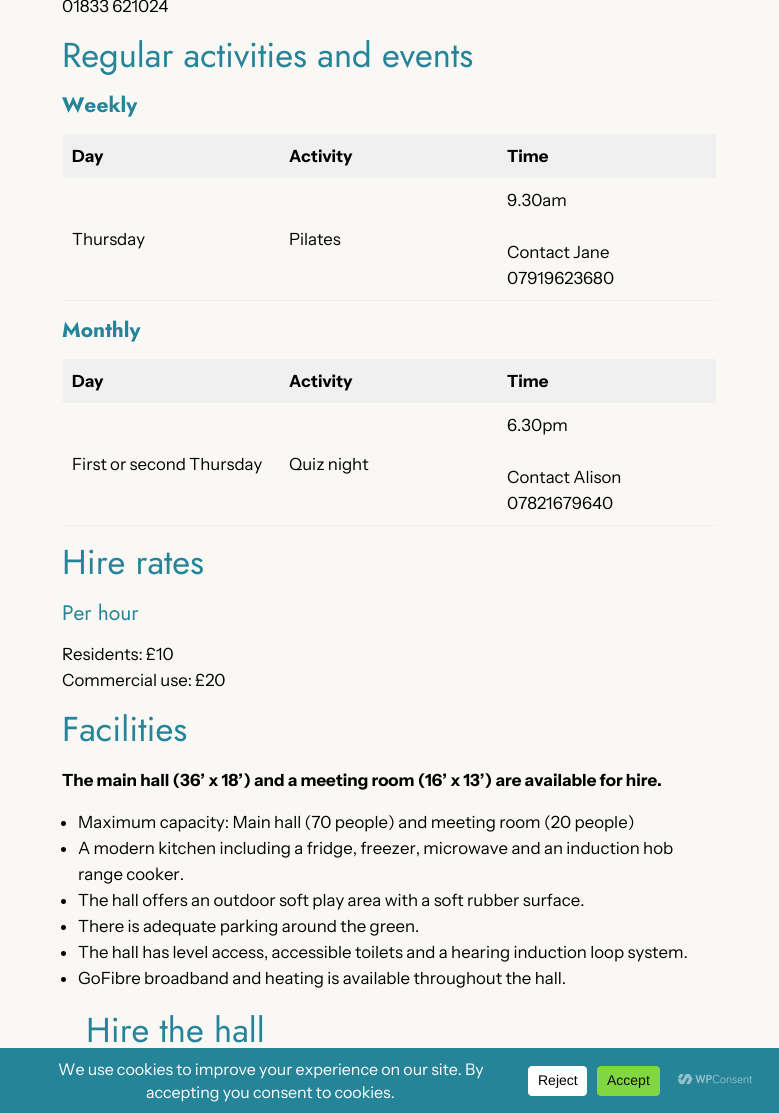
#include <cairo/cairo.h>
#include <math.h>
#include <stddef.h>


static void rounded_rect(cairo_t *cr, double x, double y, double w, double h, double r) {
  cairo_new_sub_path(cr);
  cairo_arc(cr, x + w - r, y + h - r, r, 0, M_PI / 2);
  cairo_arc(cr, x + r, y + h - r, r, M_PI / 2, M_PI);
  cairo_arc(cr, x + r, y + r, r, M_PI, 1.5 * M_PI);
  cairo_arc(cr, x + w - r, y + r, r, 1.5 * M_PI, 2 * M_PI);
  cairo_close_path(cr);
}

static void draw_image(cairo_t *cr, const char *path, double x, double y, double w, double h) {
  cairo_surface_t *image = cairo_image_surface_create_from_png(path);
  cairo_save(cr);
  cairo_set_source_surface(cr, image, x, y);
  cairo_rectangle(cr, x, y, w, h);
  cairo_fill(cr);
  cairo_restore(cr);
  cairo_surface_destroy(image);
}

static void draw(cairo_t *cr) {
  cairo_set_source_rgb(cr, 249 / 255.0, 248 / 255.0, 245 / 255.0);
  cairo_paint(cr);
  cairo_set_source_rgb(cr, 240 / 255.0, 240 / 255.0, 240 / 255.0);
  cairo_rectangle(cr, 62, 300, 655, 1);
  cairo_fill(cr);
  cairo_rectangle(cr, 63, 134, 653, 44);
  cairo_fill(cr);
  cairo_rectangle(cr, 62, 525, 655, 1);
  cairo_fill(cr);
  cairo_rectangle(cr, 63, 359, 653, 44);
  cairo_fill(cr);
  cairo_set_source_rgb(cr, 0, 0, 0);
  cairo_arc(cr, 63.5, 823.5, 2.5, 0, 2 * M_PI);
  cairo_fill(cr);
  cairo_arc(cr, 63.5, 849.5, 2.5, 0, 2 * M_PI);
  cairo_fill(cr);
  cairo_arc(cr, 63.5, 901.5, 2.5, 0, 2 * M_PI);
  cairo_fill(cr);
  cairo_arc(cr, 63.5, 927.5, 2.5, 0, 2 * M_PI);
  cairo_fill(cr);
  cairo_arc(cr, 63.5, 953.5, 2.5, 0, 2 * M_PI);
  cairo_fill(cr);
  cairo_arc(cr, 63.5, 979.5, 2.5, 0, 2 * M_PI);
  cairo_fill(cr);
  cairo_set_source_rgb(cr, 38 / 255.0, 132 / 255.0, 152 / 255.0);
  cairo_rectangle(cr, 0, 1048, 779, 65);
  cairo_fill(cr);
  cairo_set_source_rgb(cr, 1, 1, 1);
  rounded_rect(cr, 528, 1066, 59, 30, 4);
  cairo_fill(cr);
  cairo_set_source_rgb(cr, 129 / 255.0, 215 / 255.0, 66 / 255.0);
  rounded_rect(cr, 597, 1066, 63, 30, 4);
  cairo_fill(cr);
  draw_image(cr, "images/1.png", 677, 1074, 75, 11);
  cairo_select_font_face(cr, "Instrument Sans", CAIRO_FONT_SLANT_NORMAL, CAIRO_FONT_WEIGHT_NORMAL);
  cairo_set_font_size(cr, 16.8);
  cairo_set_source_rgb(cr, 0, 0, 0);
  cairo_move_to(cr, 62, 12);
  cairo_show_text(cr, "01833 621024");
  cairo_select_font_face(cr, "Jost", CAIRO_FONT_SLANT_NORMAL, CAIRO_FONT_WEIGHT_NORMAL);
  cairo_set_font_size(cr, 34.5);
  cairo_set_source_rgb(cr, 38 / 255.0, 132 / 255.0, 152 / 255.0);
  cairo_move_to(cr, 62, 67);
  cairo_show_text(cr, "Regular activities and events");
  cairo_select_font_face(cr, "Jost", CAIRO_FONT_SLANT_NORMAL, CAIRO_FONT_WEIGHT_BOLD);
  cairo_set_font_size(cr, 21);
  cairo_move_to(cr, 62, 112);
  cairo_show_text(cr, "Weekly");
  cairo_select_font_face(cr, "Instrument Sans", CAIRO_FONT_SLANT_NORMAL, CAIRO_FONT_WEIGHT_BOLD);
  cairo_set_font_size(cr, 16.8);
  cairo_set_source_rgb(cr, 0, 0, 0);
  cairo_move_to(cr, 72, 162);
  cairo_show_text(cr, "Day");
  cairo_move_to(cr, 289, 162);
  cairo_show_text(cr, "Activity");
  cairo_move_to(cr, 507, 162);
  cairo_show_text(cr, "Time");
  cairo_select_font_face(cr, "Instrument Sans", CAIRO_FONT_SLANT_NORMAL, CAIRO_FONT_WEIGHT_NORMAL);
  cairo_move_to(cr, 72, 245);
  cairo_show_text(cr, "Thursday");
  cairo_move_to(cr, 289, 245);
  cairo_show_text(cr, "Pilates");
  cairo_move_to(cr, 507, 206);
  cairo_show_text(cr, "9.30am");
  cairo_move_to(cr, 507, 258);
  cairo_show_text(cr, "Contact Jane");
  cairo_move_to(cr, 507, 284);
  cairo_show_text(cr, "07919623680");
  cairo_select_font_face(cr, "Jost", CAIRO_FONT_SLANT_NORMAL, CAIRO_FONT_WEIGHT_BOLD);
  cairo_set_font_size(cr, 21);
  cairo_set_source_rgb(cr, 38 / 255.0, 132 / 255.0, 152 / 255.0);
  cairo_move_to(cr, 62, 337);
  cairo_show_text(cr, "Monthly");
  cairo_select_font_face(cr, "Instrument Sans", CAIRO_FONT_SLANT_NORMAL, CAIRO_FONT_WEIGHT_BOLD);
  cairo_set_font_size(cr, 16.8);
  cairo_set_source_rgb(cr, 0, 0, 0);
  cairo_move_to(cr, 72, 387);
  cairo_show_text(cr, "Day");
  cairo_move_to(cr, 289, 387);
  cairo_show_text(cr, "Activity");
  cairo_move_to(cr, 507, 387);
  cairo_show_text(cr, "Time");
  cairo_select_font_face(cr, "Instrument Sans", CAIRO_FONT_SLANT_NORMAL, CAIRO_FONT_WEIGHT_NORMAL);
  cairo_move_to(cr, 72, 470);
  cairo_show_text(cr, "First or second Thursday");
  cairo_move_to(cr, 289, 470);
  cairo_show_text(cr, "Quiz night");
  cairo_move_to(cr, 507, 431);
  cairo_show_text(cr, "6.30pm");
  cairo_move_to(cr, 507, 483);
  cairo_show_text(cr, "Contact Alison");
  cairo_move_to(cr, 507, 509);
  cairo_show_text(cr, "07821679640");
  cairo_select_font_face(cr, "Jost", CAIRO_FONT_SLANT_NORMAL, CAIRO_FONT_WEIGHT_NORMAL);
  cairo_set_font_size(cr, 34.5);
  cairo_set_source_rgb(cr, 38 / 255.0, 132 / 255.0, 152 / 255.0);
  cairo_move_to(cr, 62, 574);
  cairo_show_text(cr, "Hire rates");
  cairo_set_font_size(cr, 21);
  cairo_move_to(cr, 62, 620);
  cairo_show_text(cr, "Per hour");
  cairo_select_font_face(cr, "Instrument Sans", CAIRO_FONT_SLANT_NORMAL, CAIRO_FONT_WEIGHT_NORMAL);
  cairo_set_font_size(cr, 16.8);
  cairo_set_source_rgb(cr, 0, 0, 0);
  cairo_move_to(cr, 62, 660);
  cairo_show_text(cr, "Residents: £10");
  cairo_move_to(cr, 62, 686);
  cairo_show_text(cr, "Commercial use: £20");
  cairo_select_font_face(cr, "Jost", CAIRO_FONT_SLANT_NORMAL, CAIRO_FONT_WEIGHT_NORMAL);
  cairo_set_font_size(cr, 34.5);
  cairo_set_source_rgb(cr, 38 / 255.0, 132 / 255.0, 152 / 255.0);
  cairo_move_to(cr, 62, 741);
  cairo_show_text(cr, "Facilities");
  cairo_select_font_face(cr, "Instrument Sans", CAIRO_FONT_SLANT_NORMAL, CAIRO_FONT_WEIGHT_BOLD);
  cairo_set_font_size(cr, 16.8);
  cairo_set_source_rgb(cr, 0, 0, 0);
  cairo_move_to(cr, 62, 786);
  cairo_show_text(cr, "The main hall (36’ x 18’) and a meeting room (16’ x 13’) are available for hire.");
  cairo_select_font_face(cr, "Instrument Sans", CAIRO_FONT_SLANT_NORMAL, CAIRO_FONT_WEIGHT_NORMAL);
  cairo_move_to(cr, 78, 828);
  cairo_show_text(cr, "Maximum capacity: Main hall (70 people) and meeting room (20 people)");
  cairo_move_to(cr, 78, 854);
  cairo_show_text(cr, "A modern kitchen including a fridge, freezer, microwave and an induction hob");
  cairo_move_to(cr, 78, 880);
  cairo_show_text(cr, "range cooker.");
  cairo_move_to(cr, 78, 906);
  cairo_show_text(cr, "The hall offers an outdoor soft play area with a soft rubber surface.");
  cairo_move_to(cr, 78, 932);
  cairo_show_text(cr, "There is adequate parking around the green.");
  cairo_move_to(cr, 78, 958);
  cairo_show_text(cr, "The hall has level access, accessible toilets and a hearing induction loop system.");
  cairo_move_to(cr, 78, 984);
  cairo_show_text(cr, "GoFibre broadband and heating is available throughout the hall.");
  cairo_select_font_face(cr, "Jost", CAIRO_FONT_SLANT_NORMAL, CAIRO_FONT_WEIGHT_NORMAL);
  cairo_set_font_size(cr, 34.5);
  cairo_set_source_rgb(cr, 38 / 255.0, 132 / 255.0, 152 / 255.0);
  cairo_move_to(cr, 86, 1042);
  cairo_show_text(cr, "Hire the hall");
  cairo_select_font_face(cr, "Instrument Sans", CAIRO_FONT_SLANT_NORMAL, CAIRO_FONT_WEIGHT_NORMAL);
  cairo_set_font_size(cr, 16);
  cairo_set_source_rgb(cr, 1, 1, 1);
  cairo_move_to(cr, 58, 1075);
  cairo_show_text(cr, "We use cookies to improve your experience on our site. By");
  cairo_move_to(cr, 146, 1098);
  cairo_show_text(cr, "accepting you consent to cookies.");
  cairo_select_font_face(cr, "Liberation Sans", CAIRO_FONT_SLANT_NORMAL, CAIRO_FONT_WEIGHT_NORMAL);
  cairo_set_font_size(cr, 14);
  cairo_set_source_rgb(cr, 0, 0, 0);
  cairo_move_to(cr, 538, 1085);
  cairo_show_text(cr, "Reject");
  cairo_set_source_rgb(cr, 12 / 255.0, 12 / 255.0, 12 / 255.0);
  cairo_move_to(cr, 607, 1085);
  cairo_show_text(cr, "Accept");
}

int main(void) {
  cairo_surface_t *surface = cairo_image_surface_create(CAIRO_FORMAT_RGB24, 779, 1113);
  cairo_t *cr = cairo_create(surface);
  cairo_font_options_t *options = cairo_font_options_create();
  cairo_font_options_set_hint_metrics(options, CAIRO_HINT_METRICS_OFF);
  cairo_font_options_set_hint_style(options, CAIRO_HINT_STYLE_NONE);
  cairo_set_font_options(cr, options);
  cairo_set_miter_limit(cr, 4);
  draw(cr);
  cairo_surface_write_to_png(surface, "out.png");
  cairo_font_options_destroy(options);
  cairo_destroy(cr);
  cairo_surface_destroy(surface);
  return 0;
}
